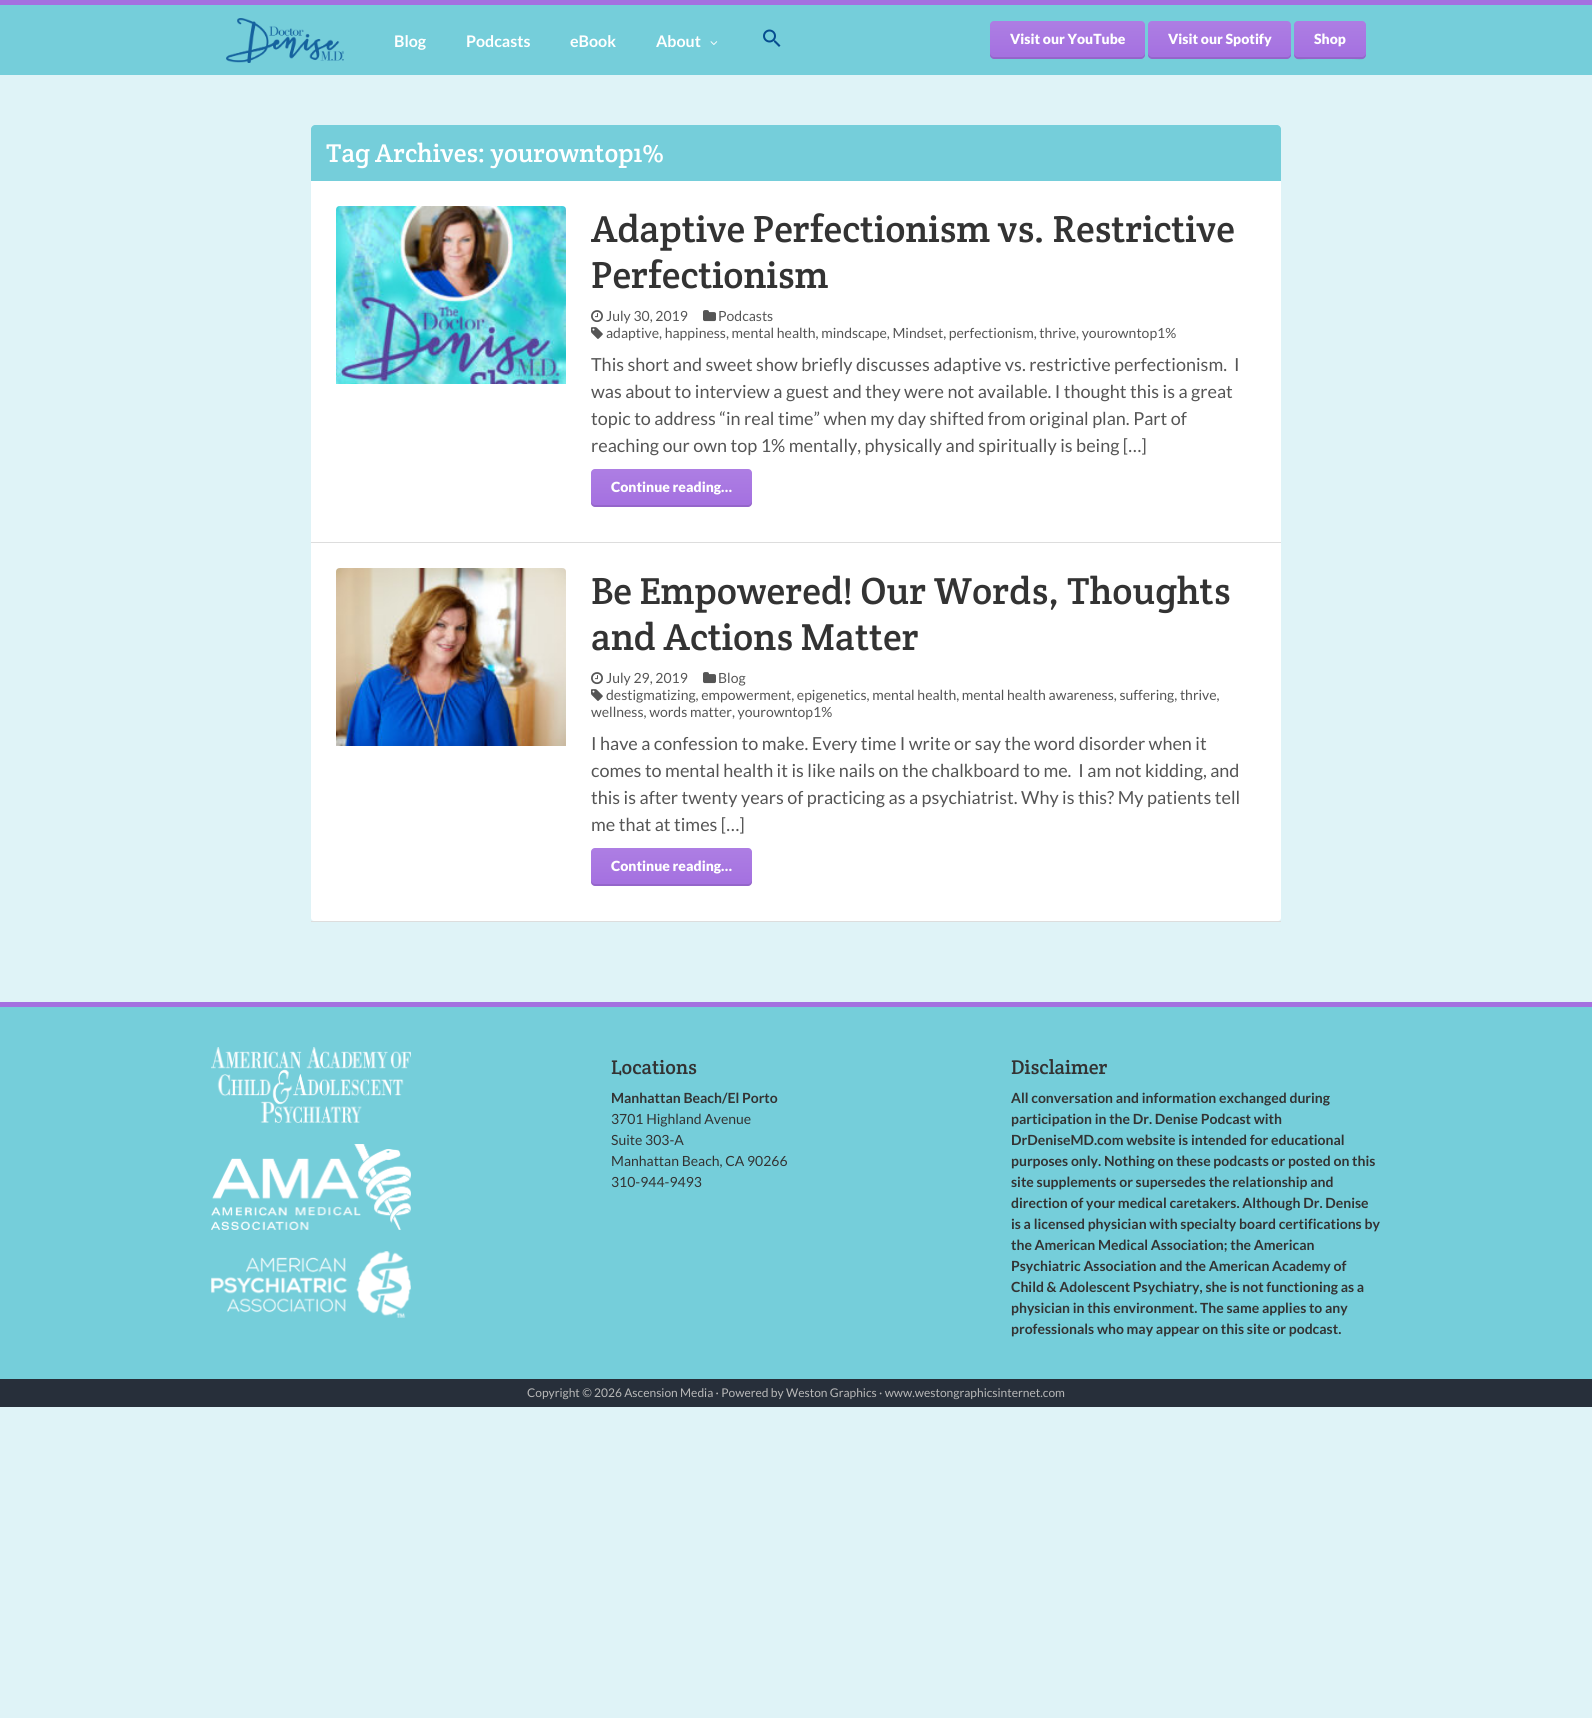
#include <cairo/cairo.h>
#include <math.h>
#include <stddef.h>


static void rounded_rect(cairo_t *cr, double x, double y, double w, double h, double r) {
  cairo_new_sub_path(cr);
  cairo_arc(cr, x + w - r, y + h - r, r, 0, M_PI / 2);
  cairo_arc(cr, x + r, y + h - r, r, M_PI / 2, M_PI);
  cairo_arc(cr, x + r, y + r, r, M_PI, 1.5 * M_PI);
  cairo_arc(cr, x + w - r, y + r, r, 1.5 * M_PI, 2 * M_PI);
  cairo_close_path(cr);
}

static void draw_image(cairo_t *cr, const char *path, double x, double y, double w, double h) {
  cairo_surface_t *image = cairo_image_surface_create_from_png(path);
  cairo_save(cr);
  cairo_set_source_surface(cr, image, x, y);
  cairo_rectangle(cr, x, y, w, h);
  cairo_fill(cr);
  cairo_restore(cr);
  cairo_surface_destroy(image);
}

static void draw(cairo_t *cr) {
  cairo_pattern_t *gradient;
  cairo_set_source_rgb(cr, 223 / 255.0, 243 / 255.0, 247 / 255.0);
  cairo_paint(cr);
  cairo_set_source_rgb(cr, 117 / 255.0, 206 / 255.0, 218 / 255.0);
  cairo_rectangle(cr, 0, 5, 1592, 70);
  cairo_fill(cr);
  cairo_set_source_rgb(cr, 164 / 255.0, 112 / 255.0, 224 / 255.0);
  cairo_rectangle(cr, 0, 0, 1592, 5);
  cairo_fill(cr);
  draw_image(cr, "images/1.png", 226, 18, 118, 45);
  draw_image(cr, "images/2.png", 710, 41, 8, 4);
  draw_image(cr, "images/3.png", 763, 29, 18, 18);
  rounded_rect(cr, 990, 21, 155, 38, 4);
  cairo_fill(cr);
  gradient = cairo_pattern_create_linear(1068, 21, 1068, 59);
  cairo_pattern_add_color_stop_rgba(gradient, 0, 1, 1, 1, 0.1);
  cairo_pattern_add_color_stop_rgba(gradient, 1, 1, 1, 1, 0);
  cairo_set_source(cr, gradient);
  cairo_pattern_destroy(gradient);
  rounded_rect(cr, 990, 21, 155, 38, 4);
  cairo_fill(cr);
  cairo_set_source_rgba(cr, 0, 0, 0, 0.1);
  cairo_new_path(cr);
  cairo_move_to(cr, 990, 53);
  cairo_line_to(cr, 990, 55);
  cairo_curve_to(cr, 990, 57, 992, 59, 994, 59);
  cairo_line_to(cr, 1141, 59);
  cairo_curve_to(cr, 1143, 59, 1145, 57, 1145, 55);
  cairo_line_to(cr, 1145, 53);
  cairo_curve_to(cr, 1145, 55, 1143, 57, 1141, 57);
  cairo_line_to(cr, 994, 57);
  cairo_curve_to(cr, 992, 57, 990, 55, 990, 53);
  cairo_close_path(cr);
  cairo_fill(cr);
  cairo_set_source_rgb(cr, 164 / 255.0, 112 / 255.0, 224 / 255.0);
  rounded_rect(cr, 1148, 21, 143, 38, 4);
  cairo_fill(cr);
  gradient = cairo_pattern_create_linear(1220, 21, 1220, 59);
  cairo_pattern_add_color_stop_rgba(gradient, 0, 1, 1, 1, 0.1);
  cairo_pattern_add_color_stop_rgba(gradient, 1, 1, 1, 1, 0);
  cairo_set_source(cr, gradient);
  cairo_pattern_destroy(gradient);
  rounded_rect(cr, 1148, 21, 143, 38, 4);
  cairo_fill(cr);
  cairo_set_source_rgba(cr, 0, 0, 0, 0.1);
  cairo_new_path(cr);
  cairo_move_to(cr, 1148, 53);
  cairo_line_to(cr, 1148, 55);
  cairo_curve_to(cr, 1148, 57, 1150, 59, 1152, 59);
  cairo_line_to(cr, 1287, 59);
  cairo_curve_to(cr, 1289, 59, 1291, 57, 1291, 55);
  cairo_line_to(cr, 1291, 53);
  cairo_curve_to(cr, 1291, 55, 1289, 57, 1287, 57);
  cairo_line_to(cr, 1152, 57);
  cairo_curve_to(cr, 1150, 57, 1148, 55, 1148, 53);
  cairo_close_path(cr);
  cairo_fill(cr);
  cairo_set_source_rgb(cr, 164 / 255.0, 112 / 255.0, 224 / 255.0);
  rounded_rect(cr, 1294, 21, 72, 38, 4);
  cairo_fill(cr);
  gradient = cairo_pattern_create_linear(1330, 21, 1330, 59);
  cairo_pattern_add_color_stop_rgba(gradient, 0, 1, 1, 1, 0.1);
  cairo_pattern_add_color_stop_rgba(gradient, 1, 1, 1, 1, 0);
  cairo_set_source(cr, gradient);
  cairo_pattern_destroy(gradient);
  rounded_rect(cr, 1294, 21, 72, 38, 4);
  cairo_fill(cr);
  cairo_set_source_rgba(cr, 0, 0, 0, 0.1);
  cairo_new_path(cr);
  cairo_move_to(cr, 1294, 53);
  cairo_curve_to(cr, 1294, 62, 1301, 59, 1309, 59);
  cairo_line_to(cr, 1351, 59);
  cairo_curve_to(cr, 1359, 59, 1366, 62, 1366, 53);
  cairo_curve_to(cr, 1366, 55, 1364, 57, 1362, 57);
  cairo_line_to(cr, 1298, 57);
  cairo_curve_to(cr, 1296, 57, 1294, 55, 1294, 53);
  cairo_close_path(cr);
  cairo_fill(cr);
  cairo_set_source_rgb(cr, 117 / 255.0, 206 / 255.0, 218 / 255.0);
  cairo_new_path(cr);
  cairo_move_to(cr, 315, 125);
  cairo_line_to(cr, 1277, 125);
  cairo_curve_to(cr, 1279, 125, 1281, 127, 1281, 129);
  cairo_line_to(cr, 1281, 181);
  cairo_line_to(cr, 311, 181);
  cairo_line_to(cr, 311, 129);
  cairo_curve_to(cr, 311, 127, 313, 125, 315, 125);
  cairo_close_path(cr);
  cairo_fill(cr);
  cairo_set_source_rgb(cr, 221 / 255.0, 221 / 255.0, 221 / 255.0);
  cairo_rectangle(cr, 311, 542, 970, 1);
  cairo_fill(cr);
  cairo_set_source_rgb(cr, 1, 1, 1);
  cairo_rectangle(cr, 311, 181, 970, 361);
  cairo_fill(cr);
  draw_image(cr, "images/4.png", 336, 206, 230, 178);
  draw_image(cr, "images/5.png", 591, 310, 12, 13);
  draw_image(cr, "images/6.png", 703, 310, 13, 12);
  draw_image(cr, "images/7.png", 591, 327, 12, 12);
  cairo_set_source_rgb(cr, 164 / 255.0, 112 / 255.0, 224 / 255.0);
  rounded_rect(cr, 591, 469, 161, 38, 4);
  cairo_fill(cr);
  gradient = cairo_pattern_create_linear(672, 469, 672, 507);
  cairo_pattern_add_color_stop_rgba(gradient, 0, 1, 1, 1, 0.1);
  cairo_pattern_add_color_stop_rgba(gradient, 1, 1, 1, 1, 0);
  cairo_set_source(cr, gradient);
  cairo_pattern_destroy(gradient);
  rounded_rect(cr, 591, 469, 161, 38, 4);
  cairo_fill(cr);
  cairo_set_source_rgba(cr, 0, 0, 0, 0.1);
  cairo_new_path(cr);
  cairo_move_to(cr, 591, 501);
  cairo_line_to(cr, 591, 503);
  cairo_curve_to(cr, 591, 505, 593, 507, 595, 507);
  cairo_line_to(cr, 748, 507);
  cairo_curve_to(cr, 750, 507, 752, 505, 752, 503);
  cairo_line_to(cr, 752, 501);
  cairo_curve_to(cr, 752, 503, 750, 505, 748, 505);
  cairo_line_to(cr, 595, 505);
  cairo_curve_to(cr, 593, 505, 591, 503, 591, 501);
  cairo_close_path(cr);
  cairo_fill(cr);
  cairo_set_source_rgb(cr, 221 / 255.0, 221 / 255.0, 221 / 255.0);
  cairo_rectangle(cr, 311, 921, 970, 1);
  cairo_fill(cr);
  cairo_set_source_rgb(cr, 1, 1, 1);
  cairo_new_path(cr);
  cairo_move_to(cr, 311, 543);
  cairo_line_to(cr, 1281, 543);
  cairo_line_to(cr, 1281, 918);
  cairo_curve_to(cr, 1281, 919.5, 1279.5, 921, 1278, 921);
  cairo_line_to(cr, 314, 921);
  cairo_curve_to(cr, 312.5, 921, 311, 919.5, 311, 918);
  cairo_close_path(cr);
  cairo_fill(cr);
  draw_image(cr, "images/8.png", 336, 568, 230, 178);
  draw_image(cr, "images/5.png", 591, 672, 12, 13);
  draw_image(cr, "images/6.png", 703, 672, 13, 12);
  draw_image(cr, "images/7.png", 591, 689, 12, 12);
  cairo_set_source_rgb(cr, 164 / 255.0, 112 / 255.0, 224 / 255.0);
  rounded_rect(cr, 591, 848, 161, 38, 4);
  cairo_fill(cr);
  gradient = cairo_pattern_create_linear(672, 848, 672, 886);
  cairo_pattern_add_color_stop_rgba(gradient, 0, 1, 1, 1, 0.1);
  cairo_pattern_add_color_stop_rgba(gradient, 1, 1, 1, 1, 0);
  cairo_set_source(cr, gradient);
  cairo_pattern_destroy(gradient);
  rounded_rect(cr, 591, 848, 161, 38, 4);
  cairo_fill(cr);
  cairo_set_source_rgba(cr, 0, 0, 0, 0.1);
  cairo_new_path(cr);
  cairo_move_to(cr, 591, 880);
  cairo_line_to(cr, 591, 882);
  cairo_curve_to(cr, 591, 884, 593, 886, 595, 886);
  cairo_line_to(cr, 748, 886);
  cairo_curve_to(cr, 750, 886, 752, 884, 752, 882);
  cairo_line_to(cr, 752, 880);
  cairo_curve_to(cr, 752, 882, 750, 884, 748, 884);
  cairo_line_to(cr, 595, 884);
  cairo_curve_to(cr, 593, 884, 591, 882, 591, 880);
  cairo_close_path(cr);
  cairo_fill(cr);
  cairo_set_source_rgb(cr, 117 / 255.0, 206 / 255.0, 218 / 255.0);
  cairo_rectangle(cr, 0, 1007, 1592, 372);
  cairo_fill(cr);
  cairo_set_source_rgb(cr, 164 / 255.0, 112 / 255.0, 224 / 255.0);
  cairo_rectangle(cr, 0, 1002, 1592, 5);
  cairo_fill(cr);
  draw_image(cr, "images/9.png", 211, 1047, 200, 76);
  draw_image(cr, "images/10.png", 211, 1144, 200, 86);
  draw_image(cr, "images/11.png", 211, 1251, 200, 67);
  cairo_set_source_rgb(cr, 39 / 255.0, 47 / 255.0, 58 / 255.0);
  cairo_rectangle(cr, 0, 1379, 1592, 28);
  cairo_fill(cr);
  cairo_select_font_face(cr, "Lato", CAIRO_FONT_SLANT_NORMAL, CAIRO_FONT_WEIGHT_BOLD);
  cairo_set_font_size(cr, 16);
  cairo_set_source_rgb(cr, 1, 1, 1);
  cairo_move_to(cr, 394, 47);
  cairo_show_text(cr, "Blog");
  cairo_move_to(cr, 466, 47);
  cairo_show_text(cr, "Podcasts");
  cairo_move_to(cr, 570, 47);
  cairo_show_text(cr, "eBook");
  cairo_move_to(cr, 656, 47);
  cairo_show_text(cr, "About");
  cairo_select_font_face(cr, "Lato Black", CAIRO_FONT_SLANT_NORMAL, CAIRO_FONT_WEIGHT_NORMAL);
  cairo_set_font_size(cr, 14);
  cairo_move_to(cr, 1010, 44);
  cairo_show_text(cr, "Visit our YouTube");
  cairo_move_to(cr, 1168, 44);
  cairo_show_text(cr, "Visit our Spotify");
  cairo_move_to(cr, 1314, 44);
  cairo_show_text(cr, "Shop");
  cairo_select_font_face(cr, "Crete Round", CAIRO_FONT_SLANT_NORMAL, CAIRO_FONT_WEIGHT_NORMAL);
  cairo_set_font_size(cr, 26);
  cairo_move_to(cr, 326, 162);
  cairo_show_text(cr, "Tag Archives: yourowntop1%");
  cairo_set_font_size(cr, 38);
  cairo_set_source_rgb(cr, 51 / 255.0, 51 / 255.0, 51 / 255.0);
  cairo_move_to(cr, 591, 242);
  cairo_show_text(cr, "Adaptive Perfectionism vs. Restrictive");
  cairo_move_to(cr, 591, 288);
  cairo_show_text(cr, "Perfectionism");
  cairo_select_font_face(cr, "Lato", CAIRO_FONT_SLANT_NORMAL, CAIRO_FONT_WEIGHT_NORMAL);
  cairo_set_font_size(cr, 14);
  cairo_set_source_rgb(cr, 85 / 255.0, 85 / 255.0, 85 / 255.0);
  cairo_move_to(cr, 606, 321);
  cairo_show_text(cr, "July 30, 2019");
  cairo_move_to(cr, 718, 321);
  cairo_show_text(cr, "Podcasts");
  cairo_move_to(cr, 606, 338);
  cairo_show_text(cr, "adaptive, happiness, mental health, mindscape, Mindset, perfectionism, thrive, yourowntop1%");
  cairo_set_font_size(cr, 18);
  cairo_move_to(cr, 591, 371);
  cairo_show_text(cr, "This short and sweet show briefly discusses adaptive vs. restrictive perfectionism.  I");
  cairo_move_to(cr, 591, 398);
  cairo_show_text(cr, "was about to interview a guest and they were not available. I thought this is a great");
  cairo_move_to(cr, 591, 425);
  cairo_show_text(cr, "topic to address “in real time” when my day shifted from original plan. Part of");
  cairo_move_to(cr, 591, 452);
  cairo_show_text(cr, "reaching our own top 1% mentally, physically and spiritually is being […]");
  cairo_select_font_face(cr, "Lato Black", CAIRO_FONT_SLANT_NORMAL, CAIRO_FONT_WEIGHT_NORMAL);
  cairo_set_font_size(cr, 14);
  cairo_set_source_rgb(cr, 1, 1, 1);
  cairo_move_to(cr, 611, 492);
  cairo_show_text(cr, "Continue reading…");
  cairo_select_font_face(cr, "Crete Round", CAIRO_FONT_SLANT_NORMAL, CAIRO_FONT_WEIGHT_NORMAL);
  cairo_set_font_size(cr, 38);
  cairo_set_source_rgb(cr, 51 / 255.0, 51 / 255.0, 51 / 255.0);
  cairo_move_to(cr, 591, 604);
  cairo_show_text(cr, "Be Empowered! Our Words, Thoughts");
  cairo_move_to(cr, 591, 650);
  cairo_show_text(cr, "and Actions Matter");
  cairo_select_font_face(cr, "Lato", CAIRO_FONT_SLANT_NORMAL, CAIRO_FONT_WEIGHT_NORMAL);
  cairo_set_font_size(cr, 14);
  cairo_set_source_rgb(cr, 85 / 255.0, 85 / 255.0, 85 / 255.0);
  cairo_move_to(cr, 606, 683);
  cairo_show_text(cr, "July 29, 2019");
  cairo_move_to(cr, 718, 683);
  cairo_show_text(cr, "Blog");
  cairo_move_to(cr, 606, 700);
  cairo_show_text(cr, "destigmatizing, empowerment, epigenetics, mental health, mental health awareness, suffering, thrive,");
  cairo_move_to(cr, 591, 717);
  cairo_show_text(cr, "wellness, words matter, yourowntop1%");
  cairo_set_font_size(cr, 18);
  cairo_move_to(cr, 591, 750);
  cairo_show_text(cr, "I have a confession to make. Every time I write or say the word disorder when it");
  cairo_move_to(cr, 591, 777);
  cairo_show_text(cr, "comes to mental health it is like nails on the chalkboard to me.  I am not kidding, and");
  cairo_move_to(cr, 591, 804);
  cairo_show_text(cr, "this is after twenty years of practicing as a psychiatrist. Why is this? My patients tell");
  cairo_move_to(cr, 591, 831);
  cairo_show_text(cr, "me that at times […]");
  cairo_select_font_face(cr, "Lato Black", CAIRO_FONT_SLANT_NORMAL, CAIRO_FONT_WEIGHT_NORMAL);
  cairo_set_font_size(cr, 14);
  cairo_set_source_rgb(cr, 1, 1, 1);
  cairo_move_to(cr, 611, 871);
  cairo_show_text(cr, "Continue reading…");
  cairo_select_font_face(cr, "Crete Round", CAIRO_FONT_SLANT_NORMAL, CAIRO_FONT_WEIGHT_NORMAL);
  cairo_set_font_size(cr, 20);
  cairo_set_source_rgb(cr, 51 / 255.0, 51 / 255.0, 51 / 255.0);
  cairo_move_to(cr, 611, 1074);
  cairo_show_text(cr, "Locations");
  cairo_select_font_face(cr, "Lato", CAIRO_FONT_SLANT_NORMAL, CAIRO_FONT_WEIGHT_BOLD);
  cairo_set_font_size(cr, 14);
  cairo_move_to(cr, 611, 1103);
  cairo_show_text(cr, "Manhattan Beach/El Porto");
  cairo_select_font_face(cr, "Lato", CAIRO_FONT_SLANT_NORMAL, CAIRO_FONT_WEIGHT_NORMAL);
  cairo_move_to(cr, 611, 1124);
  cairo_show_text(cr, "3701 Highland Avenue");
  cairo_move_to(cr, 611, 1145);
  cairo_show_text(cr, "Suite 303-A");
  cairo_move_to(cr, 611, 1166);
  cairo_show_text(cr, "Manhattan Beach, CA 90266");
  cairo_move_to(cr, 611, 1187);
  cairo_show_text(cr, "310-944-9493");
  cairo_select_font_face(cr, "Crete Round", CAIRO_FONT_SLANT_NORMAL, CAIRO_FONT_WEIGHT_NORMAL);
  cairo_set_font_size(cr, 20);
  cairo_move_to(cr, 1011, 1074);
  cairo_show_text(cr, "Disclaimer");
  cairo_select_font_face(cr, "Lato", CAIRO_FONT_SLANT_NORMAL, CAIRO_FONT_WEIGHT_BOLD);
  cairo_set_font_size(cr, 14);
  cairo_move_to(cr, 1011, 1103);
  cairo_show_text(cr, "All conversation and information exchanged during");
  cairo_move_to(cr, 1011, 1124);
  cairo_show_text(cr, "participation in the Dr. Denise Podcast with");
  cairo_move_to(cr, 1011, 1145);
  cairo_show_text(cr, "DrDeniseMD.com website is intended for educational");
  cairo_move_to(cr, 1011, 1166);
  cairo_show_text(cr, "purposes only. Nothing on these podcasts or posted on this");
  cairo_move_to(cr, 1011, 1187);
  cairo_show_text(cr, "site supplements or supersedes the relationship and");
  cairo_move_to(cr, 1011, 1208);
  cairo_show_text(cr, "direction of your medical caretakers. Although Dr. Denise");
  cairo_move_to(cr, 1011, 1229);
  cairo_show_text(cr, "is a licensed physician with specialty board certifications by");
  cairo_move_to(cr, 1011, 1250);
  cairo_show_text(cr, "the American Medical Association; the American");
  cairo_move_to(cr, 1011, 1271);
  cairo_show_text(cr, "Psychiatric Association and the American Academy of");
  cairo_move_to(cr, 1011, 1292);
  cairo_show_text(cr, "Child & Adolescent Psychiatry, she is not functioning as a");
  cairo_move_to(cr, 1011, 1313);
  cairo_show_text(cr, "physician in this environment. The same applies to any");
  cairo_move_to(cr, 1011, 1334);
  cairo_show_text(cr, "professionals who may appear on this site or podcast.");
  cairo_select_font_face(cr, "Lato", CAIRO_FONT_SLANT_NORMAL, CAIRO_FONT_WEIGHT_NORMAL);
  cairo_set_font_size(cr, 12);
  cairo_set_source_rgb(cr, 184 / 255.0, 184 / 255.0, 184 / 255.0);
  cairo_move_to(cr, 527, 1397);
  cairo_show_text(cr, "Copyright © 2026 Ascension Media · Powered by Weston Graphics · www.westongraphicsinternet.com");
}

int main(void) {
  cairo_surface_t *surface = cairo_image_surface_create(CAIRO_FORMAT_RGB24, 1592, 1718);
  cairo_t *cr = cairo_create(surface);
  cairo_font_options_t *options = cairo_font_options_create();
  cairo_font_options_set_hint_metrics(options, CAIRO_HINT_METRICS_OFF);
  cairo_font_options_set_hint_style(options, CAIRO_HINT_STYLE_NONE);
  cairo_set_font_options(cr, options);
  cairo_set_miter_limit(cr, 4);
  draw(cr);
  cairo_surface_write_to_png(surface, "out.png");
  cairo_font_options_destroy(options);
  cairo_destroy(cr);
  cairo_surface_destroy(surface);
  return 0;
}
